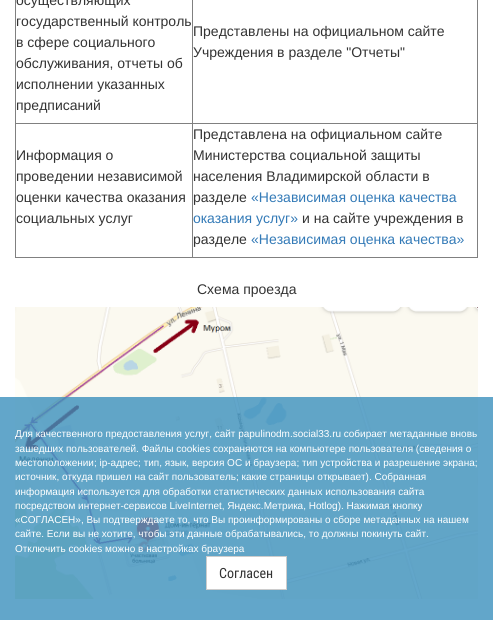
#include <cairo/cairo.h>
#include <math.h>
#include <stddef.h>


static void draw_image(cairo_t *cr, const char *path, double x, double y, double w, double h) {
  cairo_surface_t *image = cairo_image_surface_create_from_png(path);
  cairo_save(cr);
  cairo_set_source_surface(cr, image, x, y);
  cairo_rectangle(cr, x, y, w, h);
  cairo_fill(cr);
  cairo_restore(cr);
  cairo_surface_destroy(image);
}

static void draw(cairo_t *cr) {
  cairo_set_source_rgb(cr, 1, 1, 1);
  cairo_paint(cr);
  cairo_set_source_rgb(cr, 128 / 255.0, 128 / 255.0, 128 / 255.0);
  cairo_rectangle(cr, 477, 0, 1, 258);
  cairo_fill(cr);
  cairo_rectangle(cr, 15, 257, 463, 1);
  cairo_fill(cr);
  cairo_rectangle(cr, 15, 0, 1, 258);
  cairo_fill(cr);
  cairo_rectangle(cr, 192, 123, 286, 1);
  cairo_fill(cr);
  cairo_rectangle(cr, 192, 123, 1, 135);
  cairo_fill(cr);
  cairo_rectangle(cr, 15, 123, 178, 1);
  cairo_fill(cr);
  cairo_rectangle(cr, 192, 0, 1, 124);
  cairo_fill(cr);
  draw_image(cr, "images/1.png", 15, 307, 463, 292);
  cairo_set_source_rgba(cr, 59 / 255.0, 144 / 255.0, 189 / 255.0, 0.8);
  cairo_rectangle(cr, 0, 397, 493, 223);
  cairo_fill(cr);
  cairo_set_source_rgb(cr, 1, 1, 1);
  cairo_rectangle(cr, 206.5, 556.5, 80, 33);
  cairo_fill_preserve(cr);
  cairo_set_source_rgb(cr, 204 / 255.0, 204 / 255.0, 204 / 255.0);
  cairo_set_line_width(cr, 1);
  cairo_stroke(cr);
  cairo_select_font_face(cr, "Liberation Sans", CAIRO_FONT_SLANT_NORMAL, CAIRO_FONT_WEIGHT_NORMAL);
  cairo_set_font_size(cr, 14);
  cairo_set_source_rgb(cr, 51 / 255.0, 51 / 255.0, 51 / 255.0);
  cairo_move_to(cr, 16, 5);
  cairo_show_text(cr, "осуществляющих");
  cairo_move_to(cr, 16, 26);
  cairo_show_text(cr, "государственный контроль");
  cairo_move_to(cr, 16, 47);
  cairo_show_text(cr, "в сфере социального");
  cairo_move_to(cr, 16, 68);
  cairo_show_text(cr, "обслуживания, отчеты об");
  cairo_move_to(cr, 16, 89);
  cairo_show_text(cr, "исполнении указанных");
  cairo_move_to(cr, 16, 110);
  cairo_show_text(cr, "предписаний");
  cairo_move_to(cr, 193, 36);
  cairo_show_text(cr, "Представлены на официальном сайте");
  cairo_move_to(cr, 193, 57);
  cairo_show_text(cr, "Учреждения в разделе \"Отчеты\"");
  cairo_move_to(cr, 16, 160);
  cairo_show_text(cr, "Информация о");
  cairo_move_to(cr, 16, 181);
  cairo_show_text(cr, "проведении независимой");
  cairo_move_to(cr, 16, 202);
  cairo_show_text(cr, "оценки качества оказания");
  cairo_move_to(cr, 16, 223);
  cairo_show_text(cr, "социальных услуг");
  cairo_move_to(cr, 193, 139);
  cairo_show_text(cr, "Представлена на официальном сайте");
  cairo_move_to(cr, 193, 160);
  cairo_show_text(cr, "Министерства социальной защиты");
  cairo_move_to(cr, 193, 181);
  cairo_show_text(cr, "населения Владимирской области в");
  cairo_move_to(cr, 193, 202);
  cairo_show_text(cr, "разделе");
  cairo_set_source_rgb(cr, 51 / 255.0, 122 / 255.0, 183 / 255.0);
  cairo_move_to(cr, 251, 202);
  cairo_show_text(cr, "«Независимая оценка качества");
  cairo_move_to(cr, 193, 223);
  cairo_show_text(cr, "оказания услуг»");
  cairo_set_source_rgb(cr, 51 / 255.0, 51 / 255.0, 51 / 255.0);
  cairo_move_to(cr, 302, 223);
  cairo_show_text(cr, "и на сайте учреждения в");
  cairo_move_to(cr, 193, 244);
  cairo_show_text(cr, "разделе");
  cairo_set_source_rgb(cr, 51 / 255.0, 122 / 255.0, 183 / 255.0);
  cairo_move_to(cr, 251, 244);
  cairo_show_text(cr, "«Независимая оценка качества»");
  cairo_set_source_rgb(cr, 51 / 255.0, 51 / 255.0, 51 / 255.0);
  cairo_move_to(cr, 197, 294);
  cairo_show_text(cr, "Схема проезда");
  cairo_set_font_size(cr, 10);
  cairo_set_source_rgb(cr, 1, 1, 1);
  cairo_move_to(cr, 15, 437);
  cairo_show_text(cr, "Для качественного предоставления услуг, сайт papulinodm.social33.ru собирает метаданные вновь");
  cairo_move_to(cr, 15, 452);
  cairo_show_text(cr, "зашедших пользователей. Файлы cookies сохраняются на компьютере пользователя (сведения о");
  cairo_move_to(cr, 15, 466);
  cairo_show_text(cr, "местоположении; ip-адрес; тип, язык, версия ОС и браузера; тип устройства и разрешение экрана;");
  cairo_move_to(cr, 15, 480);
  cairo_show_text(cr, "источник, откуда пришел на сайт пользователь; какие страницы открывает). Собранная");
  cairo_move_to(cr, 15, 495);
  cairo_show_text(cr, "информация используется для обработки статистических данных использования сайта");
  cairo_move_to(cr, 15, 509);
  cairo_show_text(cr, "посредством интернет-сервисов LiveInternet, Яндекс.Метрика, Hotlog). Нажимая кнопку");
  cairo_move_to(cr, 15, 523);
  cairo_show_text(cr, "«СОГЛАСЕН», Вы подтверждаете то, что Вы проинформированы о сборе метаданных на нашем");
  cairo_move_to(cr, 15, 537);
  cairo_show_text(cr, "сайте. Если вы не хотите, чтобы эти данные обрабатывались, то должны покинуть сайт.");
  cairo_move_to(cr, 15, 552);
  cairo_show_text(cr, "Отключить cookies можно в настройках браузера");
  cairo_select_font_face(cr, "Roboto Condensed", CAIRO_FONT_SLANT_NORMAL, CAIRO_FONT_WEIGHT_NORMAL);
  cairo_set_font_size(cr, 14);
  cairo_set_source_rgb(cr, 51 / 255.0, 51 / 255.0, 51 / 255.0);
  cairo_move_to(cr, 219, 578);
  cairo_show_text(cr, "Согласен");
}

int main(void) {
  cairo_surface_t *surface = cairo_image_surface_create(CAIRO_FORMAT_RGB24, 493, 620);
  cairo_t *cr = cairo_create(surface);
  cairo_font_options_t *options = cairo_font_options_create();
  cairo_font_options_set_hint_metrics(options, CAIRO_HINT_METRICS_OFF);
  cairo_font_options_set_hint_style(options, CAIRO_HINT_STYLE_NONE);
  cairo_set_font_options(cr, options);
  cairo_set_miter_limit(cr, 4);
  draw(cr);
  cairo_surface_write_to_png(surface, "out.png");
  cairo_font_options_destroy(options);
  cairo_destroy(cr);
  cairo_surface_destroy(surface);
  return 0;
}
